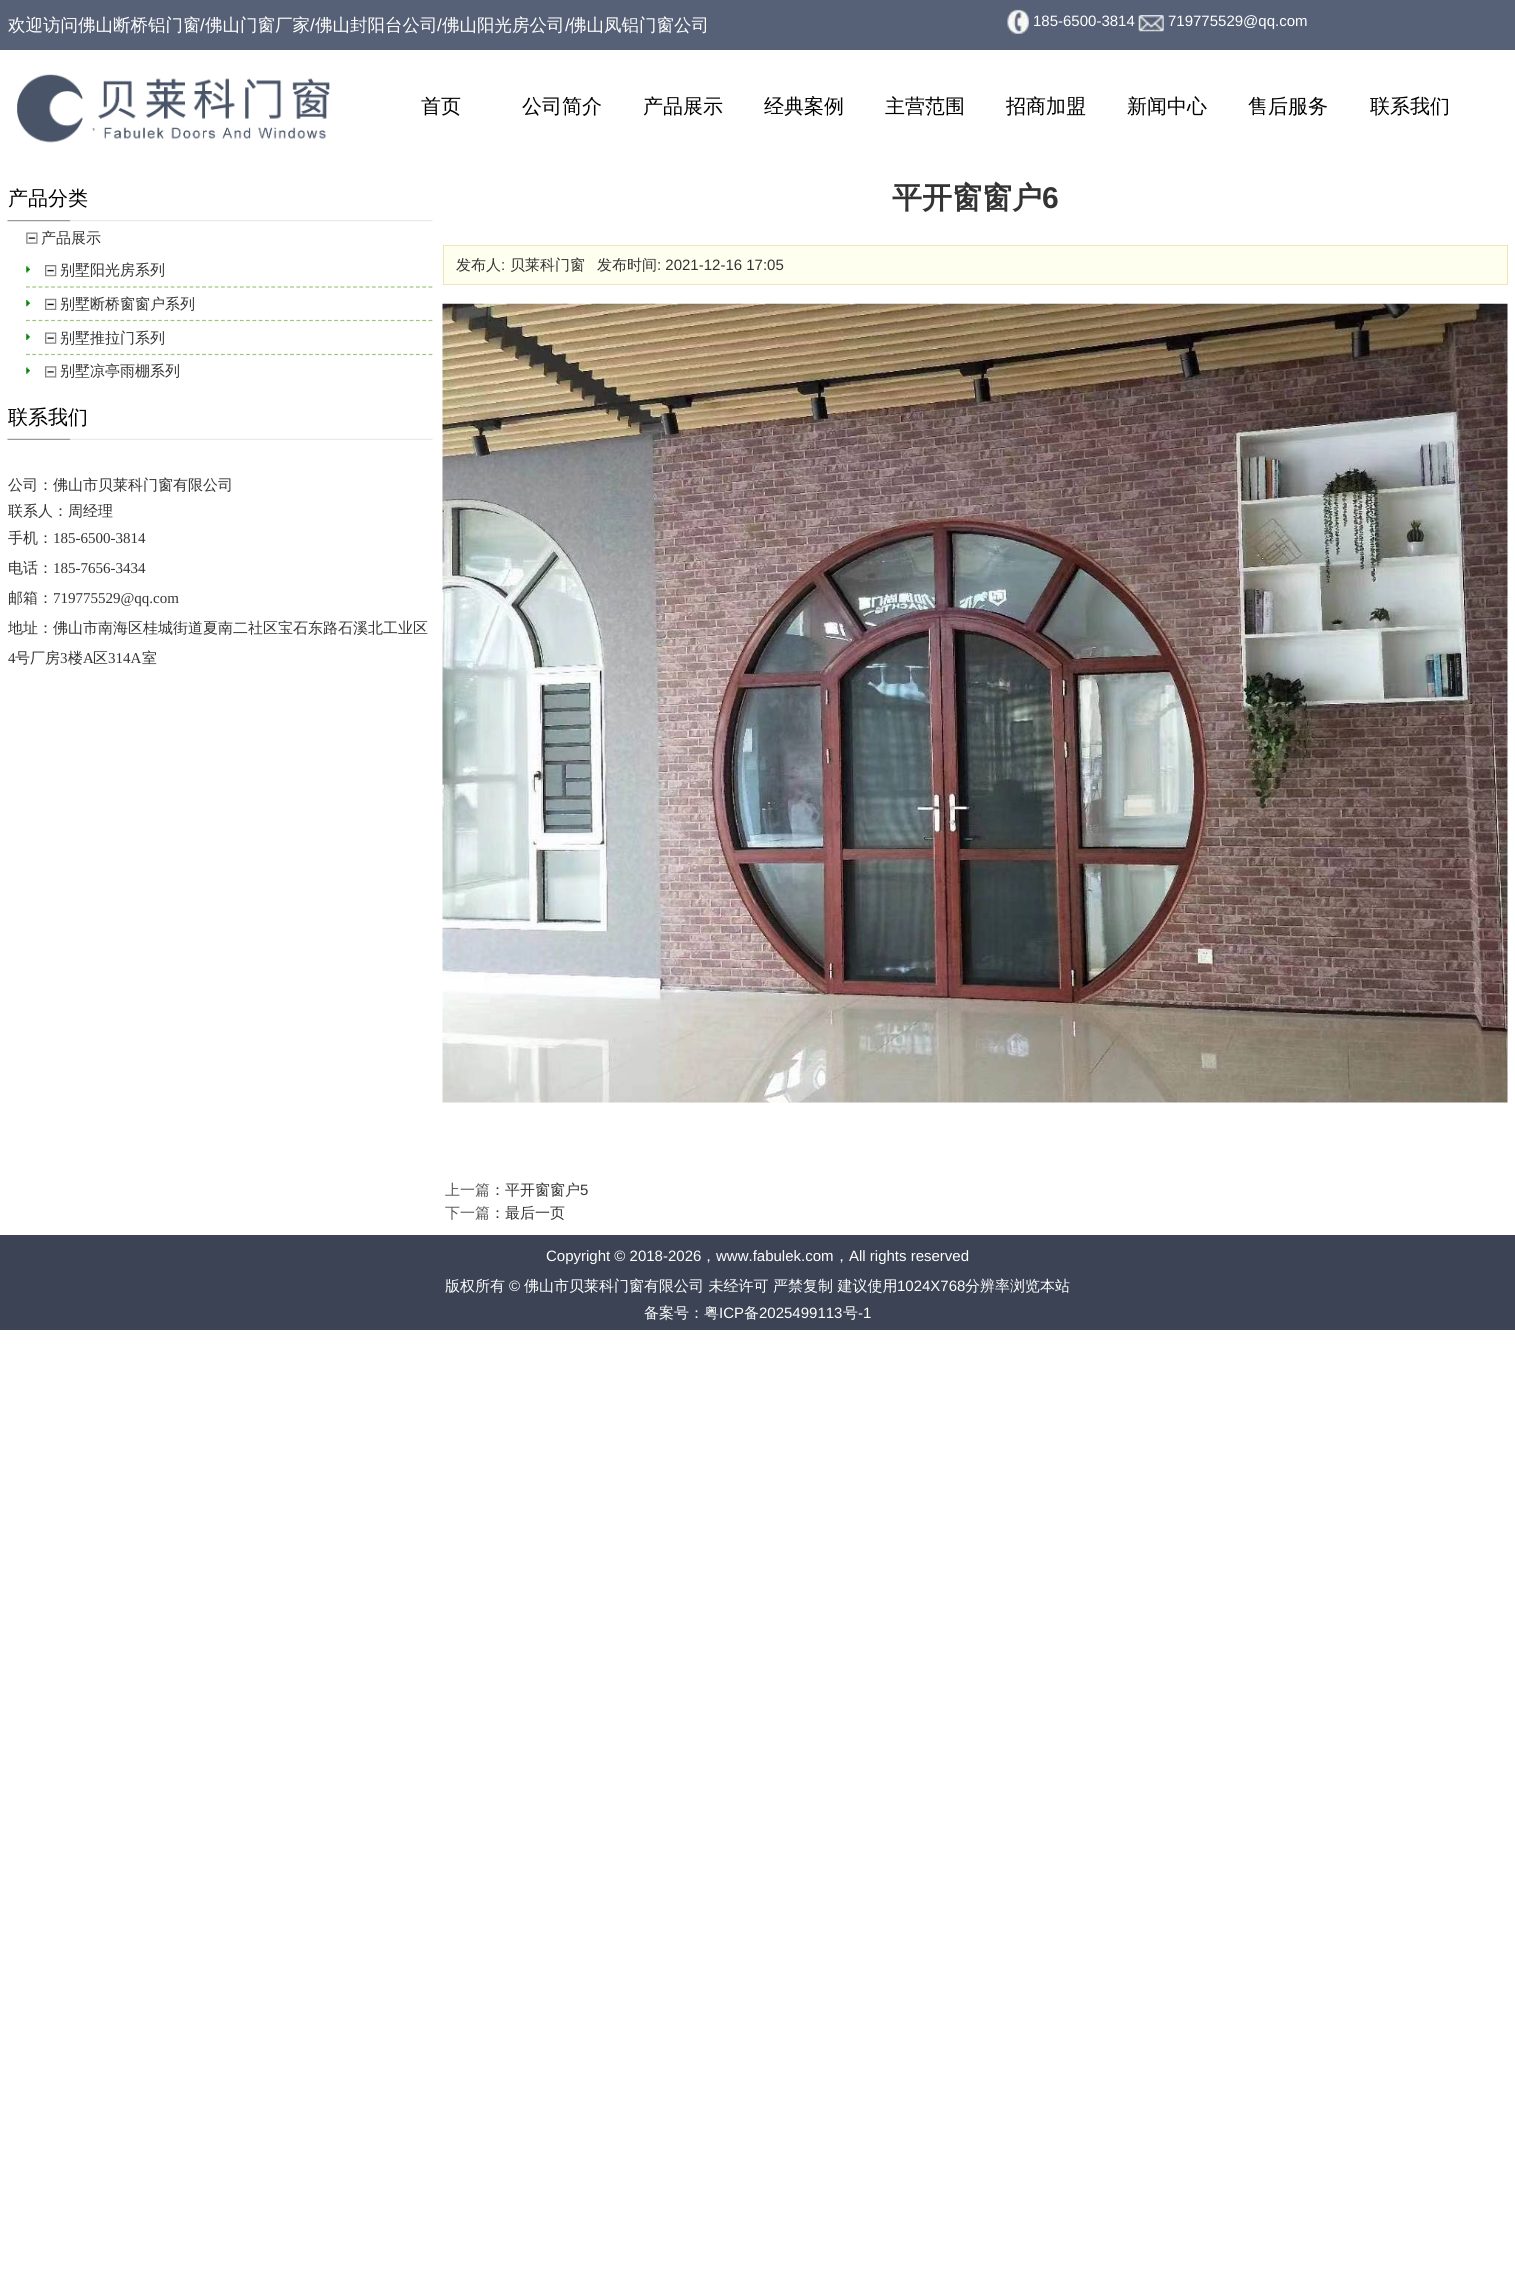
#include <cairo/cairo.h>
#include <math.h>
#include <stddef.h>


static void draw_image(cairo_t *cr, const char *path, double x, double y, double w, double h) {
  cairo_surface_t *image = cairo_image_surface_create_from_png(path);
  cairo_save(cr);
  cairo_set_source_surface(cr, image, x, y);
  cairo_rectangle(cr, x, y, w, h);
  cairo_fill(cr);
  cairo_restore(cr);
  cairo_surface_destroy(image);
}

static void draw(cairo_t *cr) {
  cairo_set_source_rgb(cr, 1, 1, 1);
  cairo_paint(cr);
  cairo_set_source_rgb(cr, 86 / 255.0, 97 / 255.0, 119 / 255.0);
  cairo_rectangle(cr, 0, 0, 1515, 50);
  cairo_fill(cr);
  draw_image(cr, "images/1.png", 1007, 9, 22, 26);
  draw_image(cr, "images/2.png", 1138, 15, 26, 17);
  draw_image(cr, "images/3.png", 17, 74, 313, 69);
  draw_image(cr, "images/4.png", 7, 220, 426, 2);
  draw_image(cr, "images/5.png", 26, 232, 12, 12);
  draw_image(cr, "images/6.png", 26, 266, 4, 7);
  draw_image(cr, "images/7.png", 45, 265, 12, 12);
  draw_image(cr, "images/8.png", 26, 300, 4, 7);
  cairo_new_path(cr);
  cairo_move_to(cr, 26, 287);
  cairo_line_to(cr, 432.5, 287);
  cairo_set_source_rgb(cr, 153 / 255.0, 199 / 255.0, 123 / 255.0);
  cairo_set_line_width(cr, 1.2);
  cairo_set_dash(cr, (double[]){3.75, 2.54}, 2, 0);
  cairo_stroke(cr);
  draw_image(cr, "images/9.png", 45, 298, 12, 12);
  draw_image(cr, "images/10.png", 26, 333, 4, 7);
  cairo_new_path(cr);
  cairo_move_to(cr, 26, 320.5);
  cairo_line_to(cr, 432.5, 320.5);
  cairo_stroke(cr);
  draw_image(cr, "images/11.png", 45, 332, 12, 12);
  draw_image(cr, "images/12.png", 26, 367, 4, 7);
  cairo_new_path(cr);
  cairo_move_to(cr, 26, 354.5);
  cairo_line_to(cr, 432.5, 354.5);
  cairo_stroke(cr);
  draw_image(cr, "images/13.png", 45, 366, 12, 12);
  draw_image(cr, "images/14.png", 7, 438, 426, 2);
  cairo_set_source_rgb(cr, 1, 1, 240 / 255.0);
  cairo_rectangle(cr, 443.5, 245.5, 1064, 39);
  cairo_fill_preserve(cr);
  cairo_set_source_rgb(cr, 244 / 255.0, 228 / 255.0, 180 / 255.0);
  cairo_set_line_width(cr, 1);
  cairo_set_dash(cr, NULL, 0, 0);
  cairo_stroke(cr);
  draw_image(cr, "images/15.png", 442, 303, 1066, 800);
  cairo_set_source_rgb(cr, 59 / 255.0, 67 / 255.0, 84 / 255.0);
  cairo_rectangle(cr, 0, 1235, 1515, 95);
  cairo_fill(cr);
  cairo_select_font_face(cr, "WenQuanYi Zen Hei Medium", CAIRO_FONT_SLANT_NORMAL, CAIRO_FONT_WEIGHT_NORMAL);
  cairo_set_font_size(cr, 17.5);
  cairo_set_source_rgb(cr, 1, 1, 1);
  cairo_move_to(cr, 8, 31);
  cairo_show_text(cr, "欢迎访问佛山断桥铝门窗");
  cairo_select_font_face(cr, "Liberation Sans", CAIRO_FONT_SLANT_NORMAL, CAIRO_FONT_WEIGHT_NORMAL);
  cairo_move_to(cr, 200, 31);
  cairo_show_text(cr, "/");
  cairo_select_font_face(cr, "WenQuanYi Zen Hei Medium", CAIRO_FONT_SLANT_NORMAL, CAIRO_FONT_WEIGHT_NORMAL);
  cairo_move_to(cr, 205, 31);
  cairo_show_text(cr, "佛山门窗厂家");
  cairo_select_font_face(cr, "Liberation Sans", CAIRO_FONT_SLANT_NORMAL, CAIRO_FONT_WEIGHT_NORMAL);
  cairo_move_to(cr, 310, 31);
  cairo_show_text(cr, "/");
  cairo_select_font_face(cr, "WenQuanYi Zen Hei Medium", CAIRO_FONT_SLANT_NORMAL, CAIRO_FONT_WEIGHT_NORMAL);
  cairo_move_to(cr, 315, 31);
  cairo_show_text(cr, "佛山封阳台公司");
  cairo_select_font_face(cr, "Liberation Sans", CAIRO_FONT_SLANT_NORMAL, CAIRO_FONT_WEIGHT_NORMAL);
  cairo_move_to(cr, 437, 31);
  cairo_show_text(cr, "/");
  cairo_select_font_face(cr, "WenQuanYi Zen Hei Medium", CAIRO_FONT_SLANT_NORMAL, CAIRO_FONT_WEIGHT_NORMAL);
  cairo_move_to(cr, 442, 31);
  cairo_show_text(cr, "佛山阳光房公司");
  cairo_select_font_face(cr, "Liberation Sans", CAIRO_FONT_SLANT_NORMAL, CAIRO_FONT_WEIGHT_NORMAL);
  cairo_move_to(cr, 565, 31);
  cairo_show_text(cr, "/");
  cairo_select_font_face(cr, "WenQuanYi Zen Hei Medium", CAIRO_FONT_SLANT_NORMAL, CAIRO_FONT_WEIGHT_NORMAL);
  cairo_move_to(cr, 569, 31);
  cairo_show_text(cr, "佛山凤铝门窗公司");
  cairo_select_font_face(cr, "Liberation Sans", CAIRO_FONT_SLANT_NORMAL, CAIRO_FONT_WEIGHT_NORMAL);
  cairo_set_font_size(cr, 15);
  cairo_move_to(cr, 1033, 26);
  cairo_show_text(cr, "185-6500-3814");
  cairo_move_to(cr, 1168, 26);
  cairo_show_text(cr, "719775529@qq.com");
  cairo_select_font_face(cr, "WenQuanYi Zen Hei Medium", CAIRO_FONT_SLANT_NORMAL, CAIRO_FONT_WEIGHT_NORMAL);
  cairo_set_font_size(cr, 20);
  cairo_set_source_rgb(cr, 0, 0, 0);
  cairo_move_to(cr, 421, 113);
  cairo_show_text(cr, "首页");
  cairo_move_to(cr, 522, 113);
  cairo_show_text(cr, "公司简介");
  cairo_move_to(cr, 643, 113);
  cairo_show_text(cr, "产品展示");
  cairo_move_to(cr, 764, 113);
  cairo_show_text(cr, "经典案例");
  cairo_move_to(cr, 885, 113);
  cairo_show_text(cr, "主营范围");
  cairo_move_to(cr, 1006, 113);
  cairo_show_text(cr, "招商加盟");
  cairo_move_to(cr, 1127, 113);
  cairo_show_text(cr, "新闻中心");
  cairo_move_to(cr, 1248, 113);
  cairo_show_text(cr, "售后服务");
  cairo_move_to(cr, 1370, 113);
  cairo_show_text(cr, "联系我们");
  cairo_move_to(cr, 8, 205);
  cairo_show_text(cr, "产品分类");
  cairo_set_font_size(cr, 15);
  cairo_set_source_rgb(cr, 51 / 255.0, 51 / 255.0, 51 / 255.0);
  cairo_move_to(cr, 41, 243);
  cairo_show_text(cr, "产品展示");
  cairo_move_to(cr, 60, 275);
  cairo_show_text(cr, "别墅阳光房系列");
  cairo_move_to(cr, 60, 309);
  cairo_show_text(cr, "别墅断桥窗窗户系列");
  cairo_move_to(cr, 60, 343);
  cairo_show_text(cr, "别墅推拉门系列");
  cairo_move_to(cr, 60, 376);
  cairo_show_text(cr, "别墅凉亭雨棚系列");
  cairo_set_font_size(cr, 20);
  cairo_set_source_rgb(cr, 0, 0, 0);
  cairo_move_to(cr, 8, 424);
  cairo_show_text(cr, "联系我们");
  cairo_set_font_size(cr, 15);
  cairo_set_source_rgb(cr, 51 / 255.0, 51 / 255.0, 51 / 255.0);
  cairo_move_to(cr, 8, 490);
  cairo_show_text(cr, "公司：佛山市贝莱科门窗有限公司");
  cairo_move_to(cr, 8, 516);
  cairo_show_text(cr, "联系人：周经理");
  cairo_move_to(cr, 8, 543);
  cairo_show_text(cr, "手机：");
  cairo_select_font_face(cr, "Liberation Serif", CAIRO_FONT_SLANT_NORMAL, CAIRO_FONT_WEIGHT_NORMAL);
  cairo_move_to(cr, 53, 543);
  cairo_show_text(cr, "185-6500-3814");
  cairo_select_font_face(cr, "WenQuanYi Zen Hei Medium", CAIRO_FONT_SLANT_NORMAL, CAIRO_FONT_WEIGHT_NORMAL);
  cairo_move_to(cr, 8, 573);
  cairo_show_text(cr, "电话：");
  cairo_select_font_face(cr, "Liberation Serif", CAIRO_FONT_SLANT_NORMAL, CAIRO_FONT_WEIGHT_NORMAL);
  cairo_move_to(cr, 53, 573);
  cairo_show_text(cr, "185-7656-3434");
  cairo_select_font_face(cr, "WenQuanYi Zen Hei Medium", CAIRO_FONT_SLANT_NORMAL, CAIRO_FONT_WEIGHT_NORMAL);
  cairo_move_to(cr, 8, 603);
  cairo_show_text(cr, "邮箱：");
  cairo_select_font_face(cr, "Liberation Serif", CAIRO_FONT_SLANT_NORMAL, CAIRO_FONT_WEIGHT_NORMAL);
  cairo_move_to(cr, 53, 603);
  cairo_show_text(cr, "719775529@qq.com");
  cairo_select_font_face(cr, "WenQuanYi Zen Hei Medium", CAIRO_FONT_SLANT_NORMAL, CAIRO_FONT_WEIGHT_NORMAL);
  cairo_move_to(cr, 8, 633);
  cairo_show_text(cr, "地址：佛山市南海区桂城街道夏南二社区宝石东路石溪北工业区");
  cairo_select_font_face(cr, "Liberation Serif", CAIRO_FONT_SLANT_NORMAL, CAIRO_FONT_WEIGHT_NORMAL);
  cairo_move_to(cr, 8, 663);
  cairo_show_text(cr, "4");
  cairo_select_font_face(cr, "WenQuanYi Zen Hei Medium", CAIRO_FONT_SLANT_NORMAL, CAIRO_FONT_WEIGHT_NORMAL);
  cairo_move_to(cr, 15, 663);
  cairo_show_text(cr, "号厂房");
  cairo_select_font_face(cr, "Liberation Serif", CAIRO_FONT_SLANT_NORMAL, CAIRO_FONT_WEIGHT_NORMAL);
  cairo_move_to(cr, 60, 663);
  cairo_show_text(cr, "3");
  cairo_select_font_face(cr, "WenQuanYi Zen Hei Medium", CAIRO_FONT_SLANT_NORMAL, CAIRO_FONT_WEIGHT_NORMAL);
  cairo_move_to(cr, 68, 663);
  cairo_show_text(cr, "楼");
  cairo_select_font_face(cr, "Liberation Serif", CAIRO_FONT_SLANT_NORMAL, CAIRO_FONT_WEIGHT_NORMAL);
  cairo_move_to(cr, 83, 663);
  cairo_show_text(cr, "A");
  cairo_select_font_face(cr, "WenQuanYi Zen Hei Medium", CAIRO_FONT_SLANT_NORMAL, CAIRO_FONT_WEIGHT_NORMAL);
  cairo_move_to(cr, 93, 663);
  cairo_show_text(cr, "区");
  cairo_select_font_face(cr, "Liberation Serif", CAIRO_FONT_SLANT_NORMAL, CAIRO_FONT_WEIGHT_NORMAL);
  cairo_move_to(cr, 108, 663);
  cairo_show_text(cr, "314A");
  cairo_select_font_face(cr, "WenQuanYi Zen Hei Medium", CAIRO_FONT_SLANT_NORMAL, CAIRO_FONT_WEIGHT_NORMAL);
  cairo_move_to(cr, 142, 663);
  cairo_show_text(cr, "室");
  cairo_select_font_face(cr, "WenQuanYi Zen Hei", CAIRO_FONT_SLANT_NORMAL, CAIRO_FONT_WEIGHT_BOLD);
  cairo_set_font_size(cr, 30);
  cairo_move_to(cr, 892, 208);
  cairo_show_text(cr, "平开窗窗户");
  cairo_select_font_face(cr, "Liberation Sans", CAIRO_FONT_SLANT_NORMAL, CAIRO_FONT_WEIGHT_BOLD);
  cairo_move_to(cr, 1042, 208);
  cairo_show_text(cr, "6");
  cairo_select_font_face(cr, "WenQuanYi Zen Hei Medium", CAIRO_FONT_SLANT_NORMAL, CAIRO_FONT_WEIGHT_NORMAL);
  cairo_set_font_size(cr, 15);
  cairo_move_to(cr, 456, 270);
  cairo_show_text(cr, "发布人");
  cairo_select_font_face(cr, "Liberation Sans", CAIRO_FONT_SLANT_NORMAL, CAIRO_FONT_WEIGHT_NORMAL);
  cairo_move_to(cr, 501, 270);
  cairo_show_text(cr, ":");
  cairo_select_font_face(cr, "WenQuanYi Zen Hei Medium", CAIRO_FONT_SLANT_NORMAL, CAIRO_FONT_WEIGHT_NORMAL);
  cairo_move_to(cr, 510, 270);
  cairo_show_text(cr, "贝莱科门窗");
  cairo_move_to(cr, 597, 270);
  cairo_show_text(cr, "发布时间");
  cairo_select_font_face(cr, "Liberation Sans", CAIRO_FONT_SLANT_NORMAL, CAIRO_FONT_WEIGHT_NORMAL);
  cairo_move_to(cr, 657, 270);
  cairo_show_text(cr, ": 2021-12-16 17:05");
  cairo_select_font_face(cr, "WenQuanYi Zen Hei Medium", CAIRO_FONT_SLANT_NORMAL, CAIRO_FONT_WEIGHT_NORMAL);
  cairo_set_source_rgb(cr, 89 / 255.0, 89 / 255.0, 89 / 255.0);
  cairo_move_to(cr, 445, 1195);
  cairo_show_text(cr, "上一篇");
  cairo_set_source_rgb(cr, 51 / 255.0, 51 / 255.0, 51 / 255.0);
  cairo_move_to(cr, 490, 1195);
  cairo_show_text(cr, "：平开窗窗户");
  cairo_select_font_face(cr, "Liberation Sans", CAIRO_FONT_SLANT_NORMAL, CAIRO_FONT_WEIGHT_NORMAL);
  cairo_move_to(cr, 580, 1195);
  cairo_show_text(cr, "5");
  cairo_select_font_face(cr, "WenQuanYi Zen Hei Medium", CAIRO_FONT_SLANT_NORMAL, CAIRO_FONT_WEIGHT_NORMAL);
  cairo_set_source_rgb(cr, 89 / 255.0, 89 / 255.0, 89 / 255.0);
  cairo_move_to(cr, 445, 1218);
  cairo_show_text(cr, "下一篇");
  cairo_set_source_rgb(cr, 51 / 255.0, 51 / 255.0, 51 / 255.0);
  cairo_move_to(cr, 490, 1218);
  cairo_show_text(cr, "：最后一页");
  cairo_select_font_face(cr, "Liberation Sans", CAIRO_FONT_SLANT_NORMAL, CAIRO_FONT_WEIGHT_NORMAL);
  cairo_set_source_rgb(cr, 1, 1, 1);
  cairo_move_to(cr, 546, 1261);
  cairo_show_text(cr, "Copyright © 2018-2026");
  cairo_select_font_face(cr, "WenQuanYi Zen Hei Medium", CAIRO_FONT_SLANT_NORMAL, CAIRO_FONT_WEIGHT_NORMAL);
  cairo_move_to(cr, 701, 1261);
  cairo_show_text(cr, "，");
  cairo_select_font_face(cr, "Liberation Sans", CAIRO_FONT_SLANT_NORMAL, CAIRO_FONT_WEIGHT_NORMAL);
  cairo_move_to(cr, 716, 1261);
  cairo_show_text(cr, "www.fabulek.com");
  cairo_select_font_face(cr, "WenQuanYi Zen Hei Medium", CAIRO_FONT_SLANT_NORMAL, CAIRO_FONT_WEIGHT_NORMAL);
  cairo_move_to(cr, 834, 1261);
  cairo_show_text(cr, "，");
  cairo_select_font_face(cr, "Liberation Sans", CAIRO_FONT_SLANT_NORMAL, CAIRO_FONT_WEIGHT_NORMAL);
  cairo_move_to(cr, 849, 1261);
  cairo_show_text(cr, "All rights reserved");
  cairo_select_font_face(cr, "WenQuanYi Zen Hei Medium", CAIRO_FONT_SLANT_NORMAL, CAIRO_FONT_WEIGHT_NORMAL);
  cairo_move_to(cr, 445, 1291);
  cairo_show_text(cr, "版权所有");
  cairo_select_font_face(cr, "Liberation Sans", CAIRO_FONT_SLANT_NORMAL, CAIRO_FONT_WEIGHT_NORMAL);
  cairo_move_to(cr, 509, 1291);
  cairo_show_text(cr, "©");
  cairo_select_font_face(cr, "WenQuanYi Zen Hei Medium", CAIRO_FONT_SLANT_NORMAL, CAIRO_FONT_WEIGHT_NORMAL);
  cairo_move_to(cr, 524, 1291);
  cairo_show_text(cr, "佛山市贝莱科门窗有限公司 未经许可 严禁复制 建议使用");
  cairo_select_font_face(cr, "Liberation Sans", CAIRO_FONT_SLANT_NORMAL, CAIRO_FONT_WEIGHT_NORMAL);
  cairo_move_to(cr, 897, 1291);
  cairo_show_text(cr, "1024X768");
  cairo_select_font_face(cr, "WenQuanYi Zen Hei Medium", CAIRO_FONT_SLANT_NORMAL, CAIRO_FONT_WEIGHT_NORMAL);
  cairo_move_to(cr, 965, 1291);
  cairo_show_text(cr, "分辨率浏览本站");
  cairo_move_to(cr, 644, 1318);
  cairo_show_text(cr, "备案号：粤");
  cairo_select_font_face(cr, "Liberation Sans", CAIRO_FONT_SLANT_NORMAL, CAIRO_FONT_WEIGHT_NORMAL);
  cairo_move_to(cr, 719, 1318);
  cairo_show_text(cr, "ICP");
  cairo_select_font_face(cr, "WenQuanYi Zen Hei Medium", CAIRO_FONT_SLANT_NORMAL, CAIRO_FONT_WEIGHT_NORMAL);
  cairo_move_to(cr, 744, 1318);
  cairo_show_text(cr, "备");
  cairo_select_font_face(cr, "Liberation Sans", CAIRO_FONT_SLANT_NORMAL, CAIRO_FONT_WEIGHT_NORMAL);
  cairo_move_to(cr, 759, 1318);
  cairo_show_text(cr, "2025499113");
  cairo_select_font_face(cr, "WenQuanYi Zen Hei Medium", CAIRO_FONT_SLANT_NORMAL, CAIRO_FONT_WEIGHT_NORMAL);
  cairo_move_to(cr, 843, 1318);
  cairo_show_text(cr, "号");
  cairo_select_font_face(cr, "Liberation Sans", CAIRO_FONT_SLANT_NORMAL, CAIRO_FONT_WEIGHT_NORMAL);
  cairo_move_to(cr, 858, 1318);
  cairo_show_text(cr, "-1");
}

int main(void) {
  cairo_surface_t *surface = cairo_image_surface_create(CAIRO_FORMAT_RGB24, 1515, 2272);
  cairo_t *cr = cairo_create(surface);
  cairo_font_options_t *options = cairo_font_options_create();
  cairo_font_options_set_hint_metrics(options, CAIRO_HINT_METRICS_OFF);
  cairo_font_options_set_hint_style(options, CAIRO_HINT_STYLE_NONE);
  cairo_set_font_options(cr, options);
  cairo_set_miter_limit(cr, 4);
  draw(cr);
  cairo_surface_write_to_png(surface, "out.png");
  cairo_font_options_destroy(options);
  cairo_destroy(cr);
  cairo_surface_destroy(surface);
  return 0;
}
